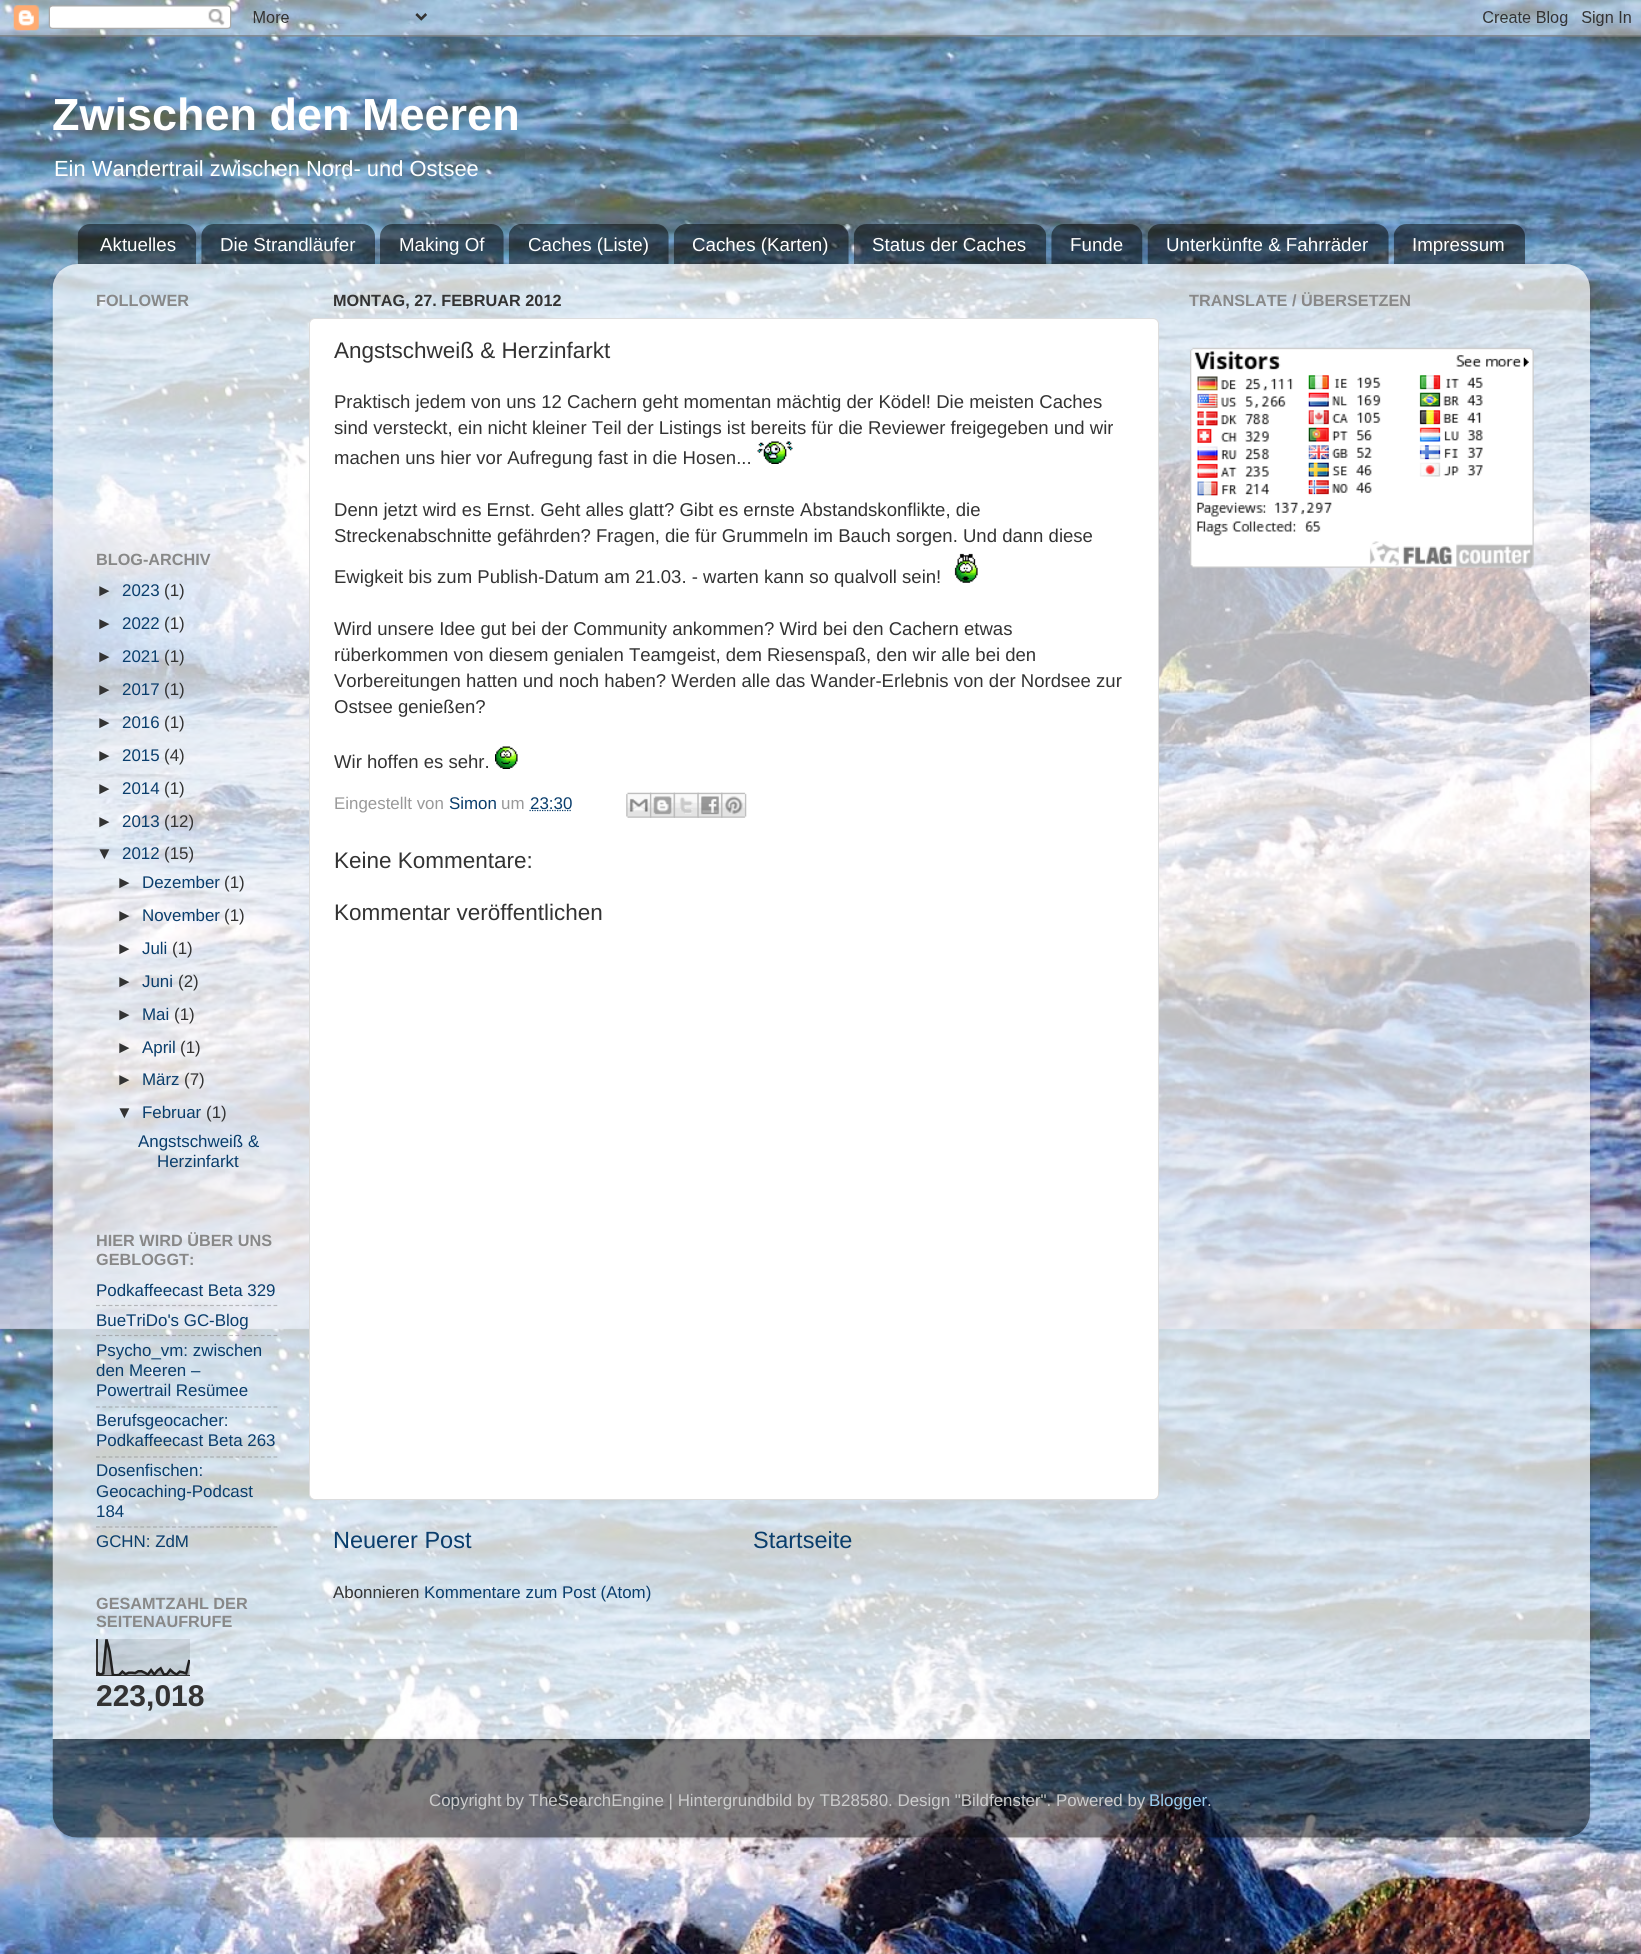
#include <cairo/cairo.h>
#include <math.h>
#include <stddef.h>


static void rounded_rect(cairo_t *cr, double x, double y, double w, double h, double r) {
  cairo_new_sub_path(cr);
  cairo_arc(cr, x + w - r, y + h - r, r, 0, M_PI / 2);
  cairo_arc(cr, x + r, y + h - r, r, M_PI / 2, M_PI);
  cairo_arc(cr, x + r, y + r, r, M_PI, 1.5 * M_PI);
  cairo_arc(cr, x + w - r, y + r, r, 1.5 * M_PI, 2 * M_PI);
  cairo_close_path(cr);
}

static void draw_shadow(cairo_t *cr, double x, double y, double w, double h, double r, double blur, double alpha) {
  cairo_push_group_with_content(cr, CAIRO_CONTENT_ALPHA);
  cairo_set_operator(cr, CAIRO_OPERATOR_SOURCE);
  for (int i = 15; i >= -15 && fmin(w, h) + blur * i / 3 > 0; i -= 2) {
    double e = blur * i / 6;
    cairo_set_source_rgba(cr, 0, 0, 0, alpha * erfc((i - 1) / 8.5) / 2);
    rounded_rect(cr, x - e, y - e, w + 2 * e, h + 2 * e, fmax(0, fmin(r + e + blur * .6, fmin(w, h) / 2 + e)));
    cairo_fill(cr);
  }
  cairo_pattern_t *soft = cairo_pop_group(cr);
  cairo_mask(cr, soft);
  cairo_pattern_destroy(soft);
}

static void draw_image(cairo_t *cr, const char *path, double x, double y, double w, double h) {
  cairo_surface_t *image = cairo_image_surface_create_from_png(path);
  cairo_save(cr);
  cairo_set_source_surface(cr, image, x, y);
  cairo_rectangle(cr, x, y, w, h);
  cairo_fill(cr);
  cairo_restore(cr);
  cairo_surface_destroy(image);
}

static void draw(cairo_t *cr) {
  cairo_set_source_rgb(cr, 1, 1, 1);
  cairo_paint(cr);
  draw_image(cr, "images/1.png", 0, 0, 1641, 1954);
  draw_image(cr, "images/2.png", 0, 0, 1641, 37);
  draw_image(cr, "images/3.png", 77, 224, 120, 40);
  draw_image(cr, "images/4.png", 201, 224, 174, 40);
  draw_image(cr, "images/5.png", 380, 224, 124, 40);
  draw_image(cr, "images/6.png", 508, 224, 161, 40);
  draw_image(cr, "images/7.png", 673, 224, 176, 40);
  draw_image(cr, "images/8.png", 853, 224, 194, 40);
  draw_image(cr, "images/9.png", 1051, 224, 92, 40);
  draw_image(cr, "images/10.png", 1147, 224, 242, 40);
  draw_image(cr, "images/11.png", 1393, 224, 132, 40);
  cairo_save(cr);
  cairo_set_fill_rule(cr, CAIRO_FILL_RULE_EVEN_ODD);
  cairo_new_path(cr);
  cairo_move_to(cr, 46, 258);
  cairo_line_to(cr, 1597, 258);
  cairo_line_to(cr, 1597, 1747);
  cairo_line_to(cr, 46, 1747);
  cairo_close_path(cr);
  cairo_move_to(cr, 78, 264);
  cairo_line_to(cr, 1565, 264);
  cairo_curve_to(cr, 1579, 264, 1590, 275, 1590, 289);
  cairo_line_to(cr, 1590, 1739);
  cairo_line_to(cr, 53, 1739);
  cairo_line_to(cr, 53, 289);
  cairo_curve_to(cr, 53, 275, 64, 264, 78, 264);
  cairo_close_path(cr);
  cairo_clip(cr);
  cairo_set_source_rgb(cr, 0, 0, 0);
  draw_shadow(cr, 53, 265, 1537, 1475, 25, 2, 0.15);
  cairo_restore(cr);
  draw_image(cr, "images/12.png", 52, 264, 1538, 1475);
  cairo_new_path(cr);
  cairo_move_to(cr, 96, 1305.5);
  cairo_line_to(cr, 277.5, 1305.5);
  cairo_set_source_rgba(cr, 128 / 255.0, 128 / 255.0, 128 / 255.0, 0.5);
  cairo_set_line_width(cr, 1.2);
  cairo_set_dash(cr, (double[]){3.75, 2.59}, 2, 0);
  cairo_stroke(cr);
  cairo_new_path(cr);
  cairo_move_to(cr, 96, 1335.5);
  cairo_line_to(cr, 277.5, 1335.5);
  cairo_stroke(cr);
  cairo_new_path(cr);
  cairo_move_to(cr, 96, 1407);
  cairo_line_to(cr, 277.5, 1407);
  cairo_stroke(cr);
  cairo_new_path(cr);
  cairo_move_to(cr, 96, 1457);
  cairo_line_to(cr, 277.5, 1457);
  cairo_stroke(cr);
  cairo_new_path(cr);
  cairo_move_to(cr, 96, 1527);
  cairo_line_to(cr, 277.5, 1527);
  cairo_stroke(cr);
  draw_image(cr, "images/13.png", 96, 1639, 94, 37);
  cairo_set_source_rgb(cr, 1, 1, 1);
  rounded_rect(cr, 309.5, 318.5, 849, 1181, 5.5);
  cairo_fill_preserve(cr);
  cairo_set_source_rgb(cr, 221 / 255.0, 221 / 255.0, 221 / 255.0);
  cairo_set_line_width(cr, 1);
  cairo_set_dash(cr, NULL, 0, 0);
  cairo_stroke(cr);
  draw_image(cr, "images/14.png", 757, 441, 36, 23);
  draw_image(cr, "images/15.png", 954, 553, 24, 30);
  draw_image(cr, "images/16.png", 495, 746, 23, 23);
  cairo_new_path(cr);
  cairo_move_to(cr, 529.5, 810.5);
  cairo_line_to(cr, 572, 810.5);
  cairo_set_source_rgb(cr, 9 / 255.0, 61 / 255.0, 108 / 255.0);
  cairo_set_line_width(cr, 1.2);
  cairo_set_dash(cr, (double[]){1.25, 1.25}, 2, 0);
  cairo_stroke(cr);
  draw_image(cr, "images/17.png", 626, 792, 26, 26);
  draw_image(cr, "images/18.png", 650, 792, 25, 26);
  draw_image(cr, "images/19.png", 673, 792, 26, 26);
  draw_image(cr, "images/20.png", 697, 792, 26, 26);
  draw_image(cr, "images/21.png", 721, 792, 26, 26);
  draw_image(cr, "images/22.png", 1190, 347, 344, 221);
  cairo_save(cr);
  cairo_set_fill_rule(cr, CAIRO_FILL_RULE_EVEN_ODD);
  cairo_new_path(cr);
  cairo_move_to(cr, 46, 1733);
  cairo_line_to(cr, 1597, 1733);
  cairo_line_to(cr, 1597, 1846);
  cairo_line_to(cr, 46, 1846);
  cairo_close_path(cr);
  cairo_move_to(cr, 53, 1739);
  cairo_line_to(cr, 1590, 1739);
  cairo_line_to(cr, 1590, 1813);
  cairo_curve_to(cr, 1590, 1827, 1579, 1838, 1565, 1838);
  cairo_line_to(cr, 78, 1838);
  cairo_curve_to(cr, 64, 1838, 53, 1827, 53, 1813);
  cairo_close_path(cr);
  cairo_clip(cr);
  cairo_set_source_rgb(cr, 0, 0, 0);
  draw_shadow(cr, 53, 1740, 1537, 99, 25, 2, 0.15);
  cairo_restore(cr);
  draw_image(cr, "images/23.png", 52, 1739, 1538, 99);
  cairo_select_font_face(cr, "Liberation Sans", CAIRO_FONT_SLANT_NORMAL, CAIRO_FONT_WEIGHT_BOLD);
  cairo_set_font_size(cr, 45);
  cairo_set_source_rgb(cr, 1, 1, 1);
  cairo_move_to(cr, 52, 130);
  cairo_show_text(cr, "Zwischen den Meeren");
  cairo_select_font_face(cr, "Liberation Sans", CAIRO_FONT_SLANT_NORMAL, CAIRO_FONT_WEIGHT_NORMAL);
  cairo_set_font_size(cr, 21.9);
  cairo_move_to(cr, 54, 176);
  cairo_show_text(cr, "Ein Wandertrail zwischen Nord- und Ostsee");
  cairo_set_font_size(cr, 18.75);
  cairo_move_to(cr, 100, 251);
  cairo_show_text(cr, "Aktuelles");
  cairo_move_to(cr, 220, 251);
  cairo_show_text(cr, "Die Strandläufer");
  cairo_move_to(cr, 399, 251);
  cairo_show_text(cr, "Making Of");
  cairo_move_to(cr, 528, 251);
  cairo_show_text(cr, "Caches (Liste)");
  cairo_move_to(cr, 692, 251);
  cairo_show_text(cr, "Caches (Karten)");
  cairo_move_to(cr, 872, 251);
  cairo_show_text(cr, "Status der Caches");
  cairo_move_to(cr, 1070, 251);
  cairo_show_text(cr, "Funde");
  cairo_move_to(cr, 1166, 251);
  cairo_show_text(cr, "Unterkünfte & Fahrräder");
  cairo_move_to(cr, 1412, 251);
  cairo_show_text(cr, "Impressum");
  cairo_select_font_face(cr, "Liberation Sans", CAIRO_FONT_SLANT_NORMAL, CAIRO_FONT_WEIGHT_BOLD);
  cairo_set_font_size(cr, 16.25);
  cairo_set_source_rgb(cr, 136 / 255.0, 136 / 255.0, 136 / 255.0);
  cairo_move_to(cr, 96, 306);
  cairo_show_text(cr, "FOLLOWER");
  cairo_move_to(cr, 96, 565);
  cairo_show_text(cr, "BLOG-ARCHIV");
  cairo_select_font_face(cr, "Liberation Sans", CAIRO_FONT_SLANT_NORMAL, CAIRO_FONT_WEIGHT_NORMAL);
  cairo_set_font_size(cr, 16.9);
  cairo_set_source_rgb(cr, 51 / 255.0, 51 / 255.0, 51 / 255.0);
  cairo_move_to(cr, 96, 596);
  cairo_show_text(cr, "►");
  cairo_set_source_rgb(cr, 9 / 255.0, 61 / 255.0, 108 / 255.0);
  cairo_move_to(cr, 122, 596);
  cairo_show_text(cr, "2023");
  cairo_set_source_rgb(cr, 51 / 255.0, 51 / 255.0, 51 / 255.0);
  cairo_move_to(cr, 164, 596);
  cairo_show_text(cr, "(1)");
  cairo_move_to(cr, 96, 629);
  cairo_show_text(cr, "►");
  cairo_set_source_rgb(cr, 9 / 255.0, 61 / 255.0, 108 / 255.0);
  cairo_move_to(cr, 122, 629);
  cairo_show_text(cr, "2022");
  cairo_set_source_rgb(cr, 51 / 255.0, 51 / 255.0, 51 / 255.0);
  cairo_move_to(cr, 164, 629);
  cairo_show_text(cr, "(1)");
  cairo_move_to(cr, 96, 662);
  cairo_show_text(cr, "►");
  cairo_set_source_rgb(cr, 9 / 255.0, 61 / 255.0, 108 / 255.0);
  cairo_move_to(cr, 122, 662);
  cairo_show_text(cr, "2021");
  cairo_set_source_rgb(cr, 51 / 255.0, 51 / 255.0, 51 / 255.0);
  cairo_move_to(cr, 164, 662);
  cairo_show_text(cr, "(1)");
  cairo_move_to(cr, 96, 695);
  cairo_show_text(cr, "►");
  cairo_set_source_rgb(cr, 9 / 255.0, 61 / 255.0, 108 / 255.0);
  cairo_move_to(cr, 122, 695);
  cairo_show_text(cr, "2017");
  cairo_set_source_rgb(cr, 51 / 255.0, 51 / 255.0, 51 / 255.0);
  cairo_move_to(cr, 164, 695);
  cairo_show_text(cr, "(1)");
  cairo_move_to(cr, 96, 728);
  cairo_show_text(cr, "►");
  cairo_set_source_rgb(cr, 9 / 255.0, 61 / 255.0, 108 / 255.0);
  cairo_move_to(cr, 122, 728);
  cairo_show_text(cr, "2016");
  cairo_set_source_rgb(cr, 51 / 255.0, 51 / 255.0, 51 / 255.0);
  cairo_move_to(cr, 164, 728);
  cairo_show_text(cr, "(1)");
  cairo_move_to(cr, 96, 761);
  cairo_show_text(cr, "►");
  cairo_set_source_rgb(cr, 9 / 255.0, 61 / 255.0, 108 / 255.0);
  cairo_move_to(cr, 122, 761);
  cairo_show_text(cr, "2015");
  cairo_set_source_rgb(cr, 51 / 255.0, 51 / 255.0, 51 / 255.0);
  cairo_move_to(cr, 164, 761);
  cairo_show_text(cr, "(4)");
  cairo_move_to(cr, 96, 794);
  cairo_show_text(cr, "►");
  cairo_set_source_rgb(cr, 9 / 255.0, 61 / 255.0, 108 / 255.0);
  cairo_move_to(cr, 122, 794);
  cairo_show_text(cr, "2014");
  cairo_set_source_rgb(cr, 51 / 255.0, 51 / 255.0, 51 / 255.0);
  cairo_move_to(cr, 164, 794);
  cairo_show_text(cr, "(1)");
  cairo_move_to(cr, 96, 827);
  cairo_show_text(cr, "►");
  cairo_set_source_rgb(cr, 9 / 255.0, 61 / 255.0, 108 / 255.0);
  cairo_move_to(cr, 122, 827);
  cairo_show_text(cr, "2013");
  cairo_set_source_rgb(cr, 51 / 255.0, 51 / 255.0, 51 / 255.0);
  cairo_move_to(cr, 164, 827);
  cairo_show_text(cr, "(12)");
  cairo_move_to(cr, 96, 859);
  cairo_show_text(cr, "▼");
  cairo_set_source_rgb(cr, 9 / 255.0, 61 / 255.0, 108 / 255.0);
  cairo_move_to(cr, 122, 859);
  cairo_show_text(cr, "2012");
  cairo_set_source_rgb(cr, 51 / 255.0, 51 / 255.0, 51 / 255.0);
  cairo_move_to(cr, 164, 859);
  cairo_show_text(cr, "(15)");
  cairo_move_to(cr, 116, 888);
  cairo_show_text(cr, "►");
  cairo_set_source_rgb(cr, 9 / 255.0, 61 / 255.0, 108 / 255.0);
  cairo_move_to(cr, 142, 888);
  cairo_show_text(cr, "Dezember");
  cairo_set_source_rgb(cr, 51 / 255.0, 51 / 255.0, 51 / 255.0);
  cairo_move_to(cr, 224, 888);
  cairo_show_text(cr, "(1)");
  cairo_move_to(cr, 116, 921);
  cairo_show_text(cr, "►");
  cairo_set_source_rgb(cr, 9 / 255.0, 61 / 255.0, 108 / 255.0);
  cairo_move_to(cr, 142, 921);
  cairo_show_text(cr, "November");
  cairo_set_source_rgb(cr, 51 / 255.0, 51 / 255.0, 51 / 255.0);
  cairo_move_to(cr, 224, 921);
  cairo_show_text(cr, "(1)");
  cairo_move_to(cr, 116, 954);
  cairo_show_text(cr, "►");
  cairo_set_source_rgb(cr, 9 / 255.0, 61 / 255.0, 108 / 255.0);
  cairo_move_to(cr, 142, 954);
  cairo_show_text(cr, "Juli");
  cairo_set_source_rgb(cr, 51 / 255.0, 51 / 255.0, 51 / 255.0);
  cairo_move_to(cr, 172, 954);
  cairo_show_text(cr, "(1)");
  cairo_move_to(cr, 116, 987);
  cairo_show_text(cr, "►");
  cairo_set_source_rgb(cr, 9 / 255.0, 61 / 255.0, 108 / 255.0);
  cairo_move_to(cr, 142, 987);
  cairo_show_text(cr, "Juni");
  cairo_set_source_rgb(cr, 51 / 255.0, 51 / 255.0, 51 / 255.0);
  cairo_move_to(cr, 178, 987);
  cairo_show_text(cr, "(2)");
  cairo_move_to(cr, 116, 1020);
  cairo_show_text(cr, "►");
  cairo_set_source_rgb(cr, 9 / 255.0, 61 / 255.0, 108 / 255.0);
  cairo_move_to(cr, 142, 1020);
  cairo_show_text(cr, "Mai");
  cairo_set_source_rgb(cr, 51 / 255.0, 51 / 255.0, 51 / 255.0);
  cairo_move_to(cr, 174, 1020);
  cairo_show_text(cr, "(1)");
  cairo_move_to(cr, 116, 1053);
  cairo_show_text(cr, "►");
  cairo_set_source_rgb(cr, 9 / 255.0, 61 / 255.0, 108 / 255.0);
  cairo_move_to(cr, 142, 1053);
  cairo_show_text(cr, "April");
  cairo_set_source_rgb(cr, 51 / 255.0, 51 / 255.0, 51 / 255.0);
  cairo_move_to(cr, 180, 1053);
  cairo_show_text(cr, "(1)");
  cairo_move_to(cr, 116, 1085);
  cairo_show_text(cr, "►");
  cairo_set_source_rgb(cr, 9 / 255.0, 61 / 255.0, 108 / 255.0);
  cairo_move_to(cr, 142, 1085);
  cairo_show_text(cr, "März");
  cairo_set_source_rgb(cr, 51 / 255.0, 51 / 255.0, 51 / 255.0);
  cairo_move_to(cr, 184, 1085);
  cairo_show_text(cr, "(7)");
  cairo_move_to(cr, 116, 1118);
  cairo_show_text(cr, "▼");
  cairo_set_source_rgb(cr, 9 / 255.0, 61 / 255.0, 108 / 255.0);
  cairo_move_to(cr, 142, 1118);
  cairo_show_text(cr, "Februar");
  cairo_set_source_rgb(cr, 51 / 255.0, 51 / 255.0, 51 / 255.0);
  cairo_move_to(cr, 206, 1118);
  cairo_show_text(cr, "(1)");
  cairo_set_source_rgb(cr, 9 / 255.0, 61 / 255.0, 108 / 255.0);
  cairo_move_to(cr, 138, 1147);
  cairo_show_text(cr, "Angstschweiß &");
  cairo_move_to(cr, 157, 1167);
  cairo_show_text(cr, "Herzinfarkt");
  cairo_select_font_face(cr, "Liberation Sans", CAIRO_FONT_SLANT_NORMAL, CAIRO_FONT_WEIGHT_BOLD);
  cairo_set_font_size(cr, 16.25);
  cairo_set_source_rgb(cr, 136 / 255.0, 136 / 255.0, 136 / 255.0);
  cairo_move_to(cr, 96, 1246);
  cairo_show_text(cr, "HIER WIRD ÜBER UNS");
  cairo_move_to(cr, 96, 1265);
  cairo_show_text(cr, "GEBLOGGT:");
  cairo_select_font_face(cr, "Liberation Sans", CAIRO_FONT_SLANT_NORMAL, CAIRO_FONT_WEIGHT_NORMAL);
  cairo_set_font_size(cr, 16.9);
  cairo_set_source_rgb(cr, 9 / 255.0, 61 / 255.0, 108 / 255.0);
  cairo_move_to(cr, 96, 1296);
  cairo_show_text(cr, "Podkaffeecast Beta 329");
  cairo_move_to(cr, 96, 1326);
  cairo_show_text(cr, "BueTriDo's GC-Blog");
  cairo_move_to(cr, 96, 1356);
  cairo_show_text(cr, "Psycho_vm: zwischen");
  cairo_move_to(cr, 96, 1376);
  cairo_show_text(cr, "den Meeren –");
  cairo_move_to(cr, 96, 1396);
  cairo_show_text(cr, "Powertrail Resümee");
  cairo_move_to(cr, 96, 1426);
  cairo_show_text(cr, "Berufsgeocacher:");
  cairo_move_to(cr, 96, 1446);
  cairo_show_text(cr, "Podkaffeecast Beta 263");
  cairo_move_to(cr, 96, 1476);
  cairo_show_text(cr, "Dosenfischen:");
  cairo_move_to(cr, 96, 1497);
  cairo_show_text(cr, "Geocaching-Podcast");
  cairo_move_to(cr, 96, 1517);
  cairo_show_text(cr, "184");
  cairo_move_to(cr, 96, 1547);
  cairo_show_text(cr, "GCHN: ZdM");
  cairo_select_font_face(cr, "Liberation Sans", CAIRO_FONT_SLANT_NORMAL, CAIRO_FONT_WEIGHT_BOLD);
  cairo_set_font_size(cr, 16.25);
  cairo_set_source_rgb(cr, 136 / 255.0, 136 / 255.0, 136 / 255.0);
  cairo_move_to(cr, 96, 1609);
  cairo_show_text(cr, "GESAMTZAHL DER");
  cairo_move_to(cr, 96, 1627);
  cairo_show_text(cr, "SEITENAUFRUFE");
  cairo_set_font_size(cr, 30);
  cairo_set_source_rgb(cr, 51 / 255.0, 51 / 255.0, 51 / 255.0);
  cairo_move_to(cr, 96, 1706);
  cairo_show_text(cr, "223,018");
  cairo_set_font_size(cr, 16.25);
  cairo_move_to(cr, 333, 306);
  cairo_show_text(cr, "MONTAG, 27. FEBRUAR 2012");
  cairo_select_font_face(cr, "Liberation Sans", CAIRO_FONT_SLANT_NORMAL, CAIRO_FONT_WEIGHT_NORMAL);
  cairo_set_font_size(cr, 22.5);
  cairo_move_to(cr, 334, 358);
  cairo_show_text(cr, "Angstschweiß & Herzinfarkt");
  cairo_set_font_size(cr, 18.55);
  cairo_move_to(cr, 334, 408);
  cairo_show_text(cr, "Praktisch jedem von uns 12 Cachern geht momentan mächtig der Ködel! Die meisten Caches");
  cairo_move_to(cr, 334, 434);
  cairo_show_text(cr, "sind versteckt, ein nicht kleiner Teil der Listings ist bereits für die Reviewer freigegeben und wir");
  cairo_move_to(cr, 334, 464);
  cairo_show_text(cr, "machen uns hier vor Aufregung fast in die Hosen...");
  cairo_move_to(cr, 334, 516);
  cairo_show_text(cr, "Denn jetzt wird es Ernst. Geht alles glatt? Gibt es ernste Abstandskonflikte, die");
  cairo_move_to(cr, 334, 542);
  cairo_show_text(cr, "Streckenabschnitte gefährden? Fragen, die für Grummeln im Bauch sorgen. Und dann diese");
  cairo_move_to(cr, 334, 583);
  cairo_show_text(cr, "Ewigkeit bis zum Publish-Datum am 21.03. - warten kann so qualvoll sein!");
  cairo_move_to(cr, 334, 635);
  cairo_show_text(cr, "Wird unsere Idee gut bei der Community ankommen? Wird bei den Cachern etwas");
  cairo_move_to(cr, 334, 661);
  cairo_show_text(cr, "rüberkommen von diesem genialen Teamgeist, dem Riesenspaß, den wir alle bei den");
  cairo_move_to(cr, 334, 687);
  cairo_show_text(cr, "Vorbereitungen hatten und noch haben? Werden alle das Wander-Erlebnis von der Nordsee zur");
  cairo_move_to(cr, 334, 713);
  cairo_show_text(cr, "Ostsee genießen?");
  cairo_move_to(cr, 334, 768);
  cairo_show_text(cr, "Wir hoffen es sehr.");
  cairo_set_font_size(cr, 16.9);
  cairo_set_source_rgb(cr, 153 / 255.0, 153 / 255.0, 153 / 255.0);
  cairo_move_to(cr, 334, 809);
  cairo_show_text(cr, "Eingestellt von");
  cairo_set_source_rgb(cr, 9 / 255.0, 61 / 255.0, 108 / 255.0);
  cairo_move_to(cr, 449, 809);
  cairo_show_text(cr, "Simon");
  cairo_set_source_rgb(cr, 153 / 255.0, 153 / 255.0, 153 / 255.0);
  cairo_move_to(cr, 501, 809);
  cairo_show_text(cr, "um");
  cairo_set_source_rgb(cr, 9 / 255.0, 61 / 255.0, 108 / 255.0);
  cairo_move_to(cr, 530, 809);
  cairo_show_text(cr, "23:30");
  cairo_set_font_size(cr, 22.5);
  cairo_set_source_rgb(cr, 51 / 255.0, 51 / 255.0, 51 / 255.0);
  cairo_move_to(cr, 334, 868);
  cairo_show_text(cr, "Keine Kommentare:");
  cairo_move_to(cr, 334, 920);
  cairo_show_text(cr, "Kommentar veröffentlichen");
  cairo_set_font_size(cr, 23.5);
  cairo_set_source_rgb(cr, 9 / 255.0, 61 / 255.0, 108 / 255.0);
  cairo_move_to(cr, 333, 1548);
  cairo_show_text(cr, "Neuerer Post");
  cairo_move_to(cr, 753, 1548);
  cairo_show_text(cr, "Startseite");
  cairo_set_font_size(cr, 16.9);
  cairo_set_source_rgb(cr, 51 / 255.0, 51 / 255.0, 51 / 255.0);
  cairo_move_to(cr, 333, 1598);
  cairo_show_text(cr, "Abonnieren");
  cairo_set_source_rgb(cr, 9 / 255.0, 61 / 255.0, 108 / 255.0);
  cairo_move_to(cr, 424, 1598);
  cairo_show_text(cr, "Kommentare zum Post (Atom)");
  cairo_select_font_face(cr, "Liberation Sans", CAIRO_FONT_SLANT_NORMAL, CAIRO_FONT_WEIGHT_BOLD);
  cairo_set_font_size(cr, 16.25);
  cairo_set_source_rgb(cr, 136 / 255.0, 136 / 255.0, 136 / 255.0);
  cairo_move_to(cr, 1189, 306);
  cairo_show_text(cr, "TRANSLATE / ÜBERSETZEN");
  cairo_select_font_face(cr, "Liberation Sans", CAIRO_FONT_SLANT_NORMAL, CAIRO_FONT_WEIGHT_NORMAL);
  cairo_set_font_size(cr, 16.9);
  cairo_set_source_rgb(cr, 204 / 255.0, 204 / 255.0, 204 / 255.0);
  cairo_move_to(cr, 429, 1806);
  cairo_show_text(cr, "Copyright by TheSearchEngine | Hintergrundbild by TB28580. Design \"Bildfenster\". Powered by");
  cairo_set_source_rgb(cr, 152 / 255.0, 204 / 255.0, 238 / 255.0);
  cairo_move_to(cr, 1149, 1806);
  cairo_show_text(cr, "Blogger");
  cairo_set_source_rgb(cr, 204 / 255.0, 204 / 255.0, 204 / 255.0);
  cairo_move_to(cr, 1207, 1806);
  cairo_show_text(cr, ".");
}

int main(void) {
  cairo_surface_t *surface = cairo_image_surface_create(CAIRO_FORMAT_RGB24, 1641, 1954);
  cairo_t *cr = cairo_create(surface);
  cairo_font_options_t *options = cairo_font_options_create();
  cairo_font_options_set_hint_metrics(options, CAIRO_HINT_METRICS_OFF);
  cairo_font_options_set_hint_style(options, CAIRO_HINT_STYLE_NONE);
  cairo_set_font_options(cr, options);
  cairo_set_miter_limit(cr, 4);
  draw(cr);
  cairo_surface_write_to_png(surface, "out.png");
  cairo_font_options_destroy(options);
  cairo_destroy(cr);
  cairo_surface_destroy(surface);
  return 0;
}
